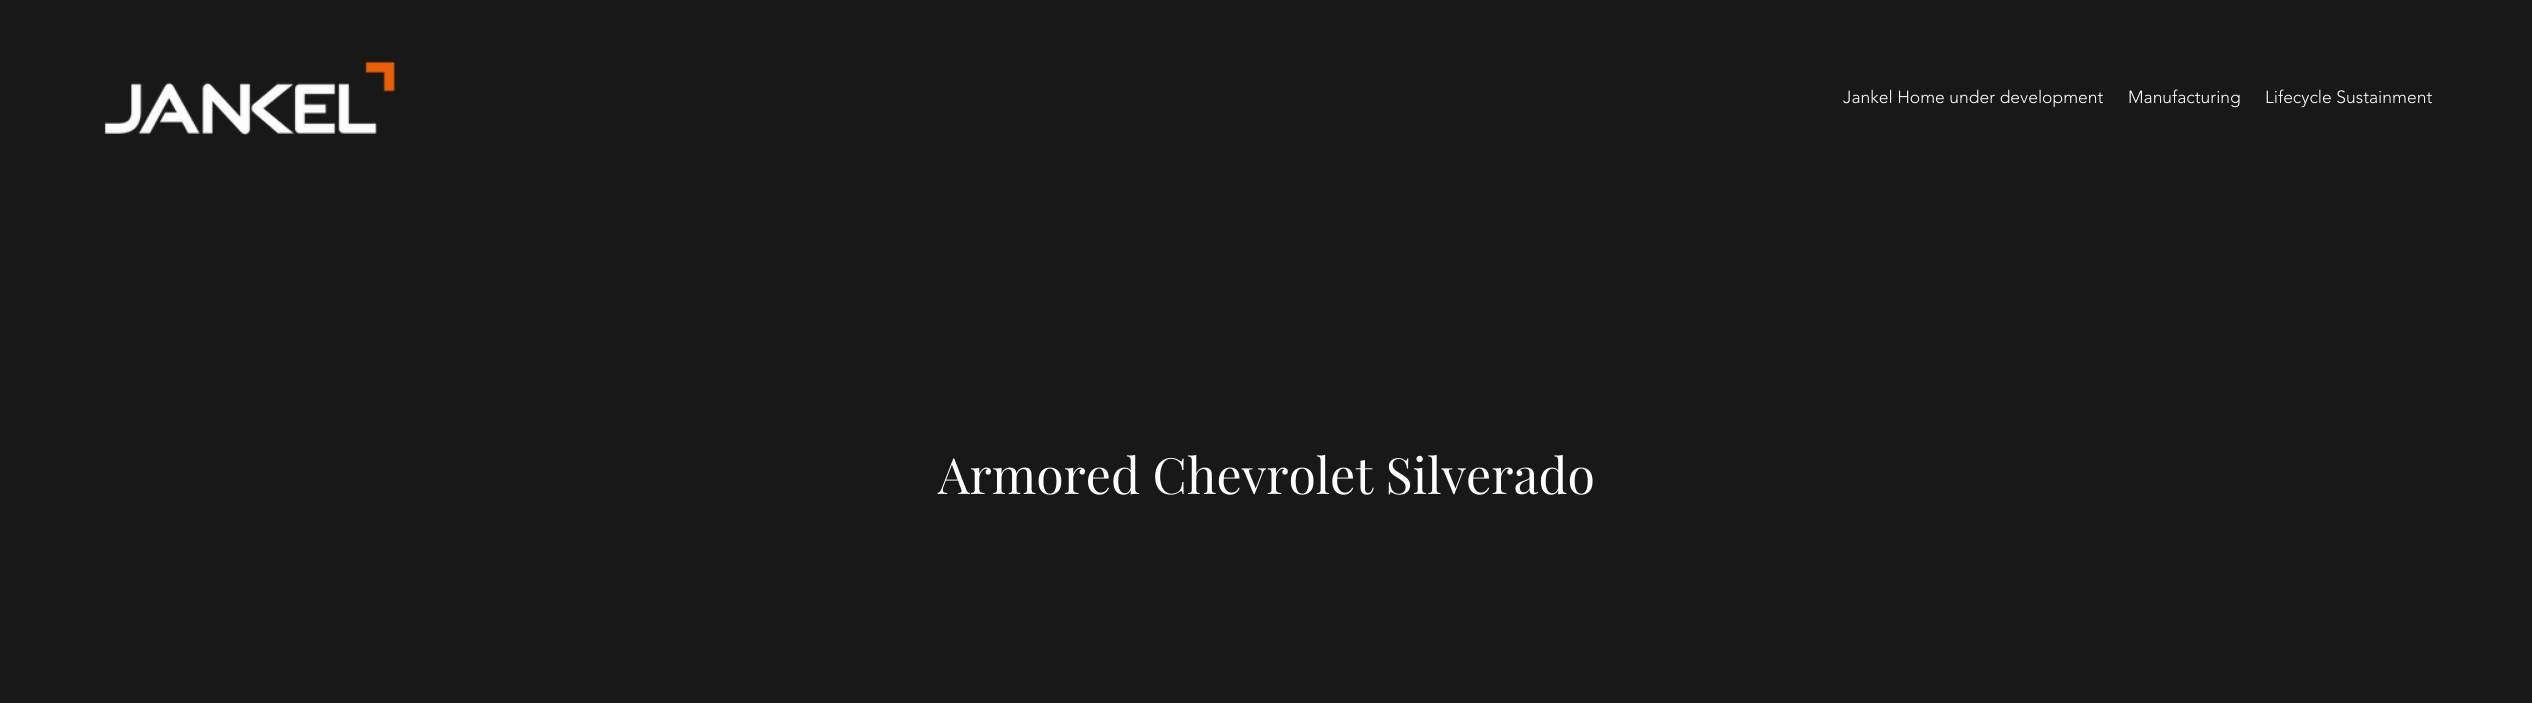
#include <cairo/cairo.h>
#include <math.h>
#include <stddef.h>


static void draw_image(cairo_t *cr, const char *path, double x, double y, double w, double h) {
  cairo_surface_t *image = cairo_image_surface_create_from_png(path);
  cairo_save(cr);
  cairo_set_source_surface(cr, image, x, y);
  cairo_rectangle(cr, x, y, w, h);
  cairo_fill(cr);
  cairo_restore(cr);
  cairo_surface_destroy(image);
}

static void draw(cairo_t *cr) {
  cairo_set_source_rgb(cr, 24 / 255.0, 24 / 255.0, 24 / 255.0);
  cairo_paint(cr);
  draw_image(cr, "images/1.png", 104, 61, 292, 75);
  cairo_select_font_face(cr, "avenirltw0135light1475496 Light", CAIRO_FONT_SLANT_NORMAL, CAIRO_FONT_WEIGHT_NORMAL);
  cairo_set_font_size(cr, 17.5);
  cairo_set_source_rgb(cr, 1, 1, 1);
  cairo_move_to(cr, 1843, 103);
  cairo_show_text(cr, "Jankel Home under development");
  cairo_move_to(cr, 2128, 103);
  cairo_show_text(cr, "Manufacturing");
  cairo_move_to(cr, 2265, 103);
  cairo_show_text(cr, "Lifecycle Sustainment");
  cairo_select_font_face(cr, "Playfair Display", CAIRO_FONT_SLANT_NORMAL, CAIRO_FONT_WEIGHT_NORMAL);
  cairo_set_font_size(cr, 50);
  cairo_move_to(cr, 938, 494);
  cairo_show_text(cr, "Armored Chevrolet Silverado");
}

int main(void) {
  cairo_surface_t *surface = cairo_image_surface_create(CAIRO_FORMAT_RGB24, 2532, 703);
  cairo_t *cr = cairo_create(surface);
  cairo_font_options_t *options = cairo_font_options_create();
  cairo_font_options_set_hint_metrics(options, CAIRO_HINT_METRICS_OFF);
  cairo_font_options_set_hint_style(options, CAIRO_HINT_STYLE_NONE);
  cairo_set_font_options(cr, options);
  cairo_set_miter_limit(cr, 4);
  draw(cr);
  cairo_surface_write_to_png(surface, "out.png");
  cairo_font_options_destroy(options);
  cairo_destroy(cr);
  cairo_surface_destroy(surface);
  return 0;
}
